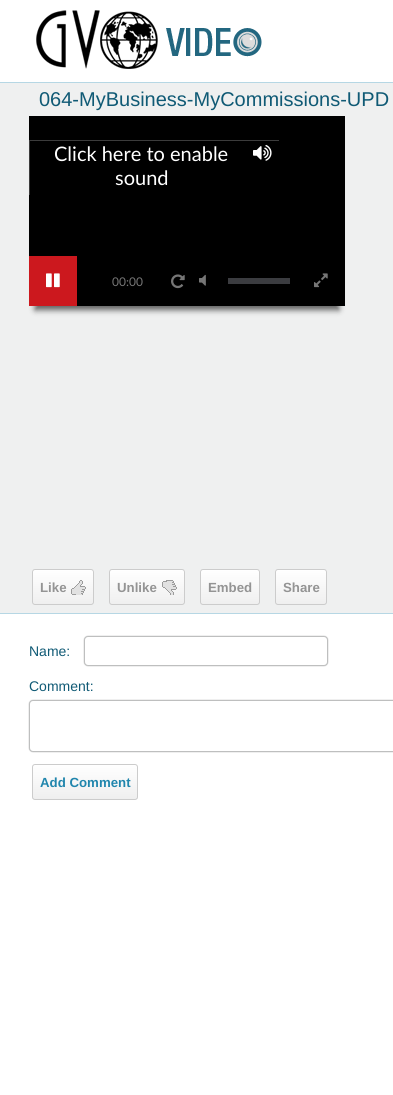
#include <cairo/cairo.h>
#include <math.h>
#include <stddef.h>


static void rounded_rect(cairo_t *cr, double x, double y, double w, double h, double r) {
  cairo_new_sub_path(cr);
  cairo_arc(cr, x + w - r, y + h - r, r, 0, M_PI / 2);
  cairo_arc(cr, x + r, y + h - r, r, M_PI / 2, M_PI);
  cairo_arc(cr, x + r, y + r, r, M_PI, 1.5 * M_PI);
  cairo_arc(cr, x + w - r, y + r, r, 1.5 * M_PI, 2 * M_PI);
  cairo_close_path(cr);
}

static void draw_shadow(cairo_t *cr, double x, double y, double w, double h, double r, double blur, double alpha) {
  cairo_push_group_with_content(cr, CAIRO_CONTENT_ALPHA);
  cairo_set_operator(cr, CAIRO_OPERATOR_SOURCE);
  for (int i = 15; i >= -15 && fmin(w, h) + blur * i / 3 > 0; i -= 2) {
    double e = blur * i / 6;
    cairo_set_source_rgba(cr, 0, 0, 0, alpha * erfc((i - 1) / 8.5) / 2);
    rounded_rect(cr, x - e, y - e, w + 2 * e, h + 2 * e, fmax(0, fmin(r + e + blur * .6, fmin(w, h) / 2 + e)));
    cairo_fill(cr);
  }
  cairo_pattern_t *soft = cairo_pop_group(cr);
  cairo_mask(cr, soft);
  cairo_pattern_destroy(soft);
}

static void draw_image(cairo_t *cr, const char *path, double x, double y, double w, double h) {
  cairo_surface_t *image = cairo_image_surface_create_from_png(path);
  cairo_save(cr);
  cairo_set_source_surface(cr, image, x, y);
  cairo_rectangle(cr, x, y, w, h);
  cairo_fill(cr);
  cairo_restore(cr);
  cairo_surface_destroy(image);
}

static void draw(cairo_t *cr) {
  cairo_pattern_t *gradient;
  cairo_set_source_rgb(cr, 1, 1, 1);
  cairo_paint(cr);
  draw_image(cr, "images/1.png", 36, 10, 226, 59);
  cairo_set_source_rgb(cr, 239 / 255.0, 240 / 255.0, 240 / 255.0);
  cairo_rectangle(cr, 0, 83, 393, 530);
  cairo_fill(cr);
  cairo_set_source_rgb(cr, 182 / 255.0, 215 / 255.0, 228 / 255.0);
  cairo_rectangle(cr, 0, 82, 393, 1);
  cairo_fill(cr);
  cairo_rectangle(cr, 0, 613, 393, 1);
  cairo_fill(cr);
  cairo_set_source_rgb(cr, 0, 0, 0);
  draw_shadow(cr, 35, 132, 304, 178, 0, 3, 0.6);
  cairo_set_source_rgb(cr, 0, 0, 0);
  cairo_rectangle(cr, 29, 116, 316, 190);
  cairo_fill(cr);
  cairo_save(cr);
  cairo_rectangle(cr, 29, 140, 250, 55);
  cairo_clip(cr);
  cairo_rectangle(cr, 29.5, 140.5, 251, 56);
  cairo_set_source_rgb(cr, 60 / 255.0, 60 / 255.0, 60 / 255.0);
  cairo_set_line_width(cr, 1);
  cairo_stroke(cr);
  cairo_restore(cr);
  draw_image(cr, "images/2.png", 253, 144, 19, 17);
  cairo_set_source_rgb(cr, 204 / 255.0, 24 / 255.0, 30 / 255.0);
  cairo_rectangle(cr, 29, 256, 48, 50);
  cairo_fill(cr);
  draw_image(cr, "images/3.png", 46, 273, 14, 15);
  draw_image(cr, "images/4.png", 171, 274, 14, 15);
  draw_image(cr, "images/5.png", 199, 274, 7, 12);
  cairo_set_source_rgb(cr, 59 / 255.0, 60 / 255.0, 64 / 255.0);
  cairo_rectangle(cr, 228, 278, 62, 6);
  cairo_fill(cr);
  draw_image(cr, "images/6.png", 314, 273, 14, 15);
  cairo_save(cr);
  rounded_rect(cr, 32, 569, 62, 36, 3);
  cairo_clip(cr);
  gradient = cairo_pattern_create_linear(33, 570, 33, 604);
  cairo_pattern_add_color_stop_rgba(gradient, 0, 1, 1, 1, 1);
  cairo_pattern_add_color_stop_rgba(gradient, 1, 239 / 255.0, 239 / 255.0, 239 / 255.0, 1);
  cairo_set_source(cr, gradient);
  cairo_pattern_destroy(gradient);
  cairo_rectangle(cr, 32, 570, 62, 34);
  cairo_fill(cr);
  cairo_restore(cr);
  rounded_rect(cr, 32.5, 569.5, 61, 35, 2.5);
  cairo_set_source_rgb(cr, 204 / 255.0, 204 / 255.0, 204 / 255.0);
  cairo_set_line_width(cr, 1);
  cairo_stroke(cr);
  draw_image(cr, "images/7.png", 71, 580, 15, 15);
  cairo_save(cr);
  rounded_rect(cr, 109, 569, 76, 36, 3);
  cairo_clip(cr);
  gradient = cairo_pattern_create_linear(110, 570, 110, 604);
  cairo_pattern_add_color_stop_rgba(gradient, 0, 1, 1, 1, 1);
  cairo_pattern_add_color_stop_rgba(gradient, 1, 239 / 255.0, 239 / 255.0, 239 / 255.0, 1);
  cairo_set_source(cr, gradient);
  cairo_pattern_destroy(gradient);
  cairo_rectangle(cr, 109, 570, 76, 34);
  cairo_fill(cr);
  cairo_restore(cr);
  rounded_rect(cr, 109.5, 569.5, 75, 35, 2.5);
  cairo_stroke(cr);
  draw_image(cr, "images/8.png", 162, 580, 15, 15);
  cairo_save(cr);
  rounded_rect(cr, 200, 569, 60, 36, 3);
  cairo_clip(cr);
  gradient = cairo_pattern_create_linear(201, 570, 201, 604);
  cairo_pattern_add_color_stop_rgba(gradient, 0, 1, 1, 1, 1);
  cairo_pattern_add_color_stop_rgba(gradient, 1, 239 / 255.0, 239 / 255.0, 239 / 255.0, 1);
  cairo_set_source(cr, gradient);
  cairo_pattern_destroy(gradient);
  cairo_rectangle(cr, 200, 570, 60, 34);
  cairo_fill(cr);
  cairo_restore(cr);
  rounded_rect(cr, 200.5, 569.5, 59, 35, 2.5);
  cairo_stroke(cr);
  cairo_save(cr);
  rounded_rect(cr, 275, 569, 52, 36, 3);
  cairo_clip(cr);
  gradient = cairo_pattern_create_linear(276, 570, 276, 604);
  cairo_pattern_add_color_stop_rgba(gradient, 0, 1, 1, 1, 1);
  cairo_pattern_add_color_stop_rgba(gradient, 1, 239 / 255.0, 239 / 255.0, 239 / 255.0, 1);
  cairo_set_source(cr, gradient);
  cairo_pattern_destroy(gradient);
  cairo_rectangle(cr, 275, 570, 52, 34);
  cairo_fill(cr);
  cairo_restore(cr);
  rounded_rect(cr, 275.5, 569.5, 51, 35, 2.5);
  cairo_stroke(cr);
  cairo_set_source_rgb(cr, 190 / 255.0, 191 / 255.0, 191 / 255.0);
  draw_shadow(cr, 84, 636, 244, 30, 4, 0.5, 1);
  cairo_set_source_rgb(cr, 1, 1, 1);
  rounded_rect(cr, 84.5, 636.5, 243, 29, 3.5);
  cairo_fill_preserve(cr);
  cairo_set_source_rgb(cr, 190 / 255.0, 191 / 255.0, 191 / 255.0);
  cairo_stroke(cr);
  cairo_set_source_rgb(cr, 190 / 255.0, 191 / 255.0, 191 / 255.0);
  draw_shadow(cr, 29, 700, 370, 52, 4, 0.5, 1);
  cairo_set_source_rgb(cr, 1, 1, 1);
  rounded_rect(cr, 29.5, 700.5, 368, 51, 3.5);
  cairo_fill_preserve(cr);
  cairo_set_source_rgb(cr, 190 / 255.0, 191 / 255.0, 191 / 255.0);
  cairo_stroke(cr);
  cairo_save(cr);
  rounded_rect(cr, 32, 764, 106, 36, 3);
  cairo_clip(cr);
  gradient = cairo_pattern_create_linear(33, 765, 33, 799);
  cairo_pattern_add_color_stop_rgba(gradient, 0, 1, 1, 1, 1);
  cairo_pattern_add_color_stop_rgba(gradient, 1, 239 / 255.0, 239 / 255.0, 239 / 255.0, 1);
  cairo_set_source(cr, gradient);
  cairo_pattern_destroy(gradient);
  cairo_rectangle(cr, 32, 765, 106, 34);
  cairo_fill(cr);
  cairo_restore(cr);
  rounded_rect(cr, 32.5, 764.5, 105, 35, 2.5);
  cairo_set_source_rgb(cr, 204 / 255.0, 204 / 255.0, 204 / 255.0);
  cairo_stroke(cr);
  cairo_select_font_face(cr, "Liberation Sans", CAIRO_FONT_SLANT_NORMAL, CAIRO_FONT_WEIGHT_NORMAL);
  cairo_set_font_size(cr, 20);
  cairo_set_source_rgb(cr, 16 / 255.0, 90 / 255.0, 117 / 255.0);
  cairo_move_to(cr, 39, 106);
  cairo_show_text(cr, "064-MyBusiness-MyCommissions-UPD");
  cairo_select_font_face(cr, "Lato", CAIRO_FONT_SLANT_NORMAL, CAIRO_FONT_WEIGHT_NORMAL);
  cairo_set_source_rgb(cr, 1, 1, 1);
  cairo_move_to(cr, 54, 161);
  cairo_show_text(cr, "Click here to enable");
  cairo_move_to(cr, 115, 185);
  cairo_show_text(cr, "sound");
  cairo_set_font_size(cr, 12);
  cairo_set_source_rgb(cr, 118 / 255.0, 118 / 255.0, 118 / 255.0);
  cairo_move_to(cr, 112, 286);
  cairo_show_text(cr, "00:00");
  cairo_select_font_face(cr, "Liberation Sans", CAIRO_FONT_SLANT_NORMAL, CAIRO_FONT_WEIGHT_BOLD);
  cairo_set_font_size(cr, 13.25);
  cairo_set_source_rgb(cr, 148 / 255.0, 148 / 255.0, 148 / 255.0);
  cairo_move_to(cr, 40, 592);
  cairo_show_text(cr, "Like");
  cairo_move_to(cr, 117, 592);
  cairo_show_text(cr, "Unlike");
  cairo_move_to(cr, 208, 592);
  cairo_show_text(cr, "Embed");
  cairo_move_to(cr, 283, 592);
  cairo_show_text(cr, "Share");
  cairo_select_font_face(cr, "Liberation Sans", CAIRO_FONT_SLANT_NORMAL, CAIRO_FONT_WEIGHT_NORMAL);
  cairo_set_font_size(cr, 14);
  cairo_set_source_rgb(cr, 16 / 255.0, 90 / 255.0, 117 / 255.0);
  cairo_move_to(cr, 29, 656);
  cairo_show_text(cr, "Name:");
  cairo_move_to(cr, 29, 691);
  cairo_show_text(cr, "Comment:");
  cairo_select_font_face(cr, "Liberation Sans", CAIRO_FONT_SLANT_NORMAL, CAIRO_FONT_WEIGHT_BOLD);
  cairo_set_font_size(cr, 13.25);
  cairo_set_source_rgb(cr, 33 / 255.0, 134 / 255.0, 173 / 255.0);
  cairo_move_to(cr, 40, 787);
  cairo_show_text(cr, "Add Comment");
}

int main(void) {
  cairo_surface_t *surface = cairo_image_surface_create(CAIRO_FORMAT_RGB24, 393, 1095);
  cairo_t *cr = cairo_create(surface);
  cairo_font_options_t *options = cairo_font_options_create();
  cairo_font_options_set_hint_metrics(options, CAIRO_HINT_METRICS_OFF);
  cairo_font_options_set_hint_style(options, CAIRO_HINT_STYLE_NONE);
  cairo_set_font_options(cr, options);
  cairo_set_miter_limit(cr, 4);
  draw(cr);
  cairo_surface_write_to_png(surface, "out.png");
  cairo_font_options_destroy(options);
  cairo_destroy(cr);
  cairo_surface_destroy(surface);
  return 0;
}
